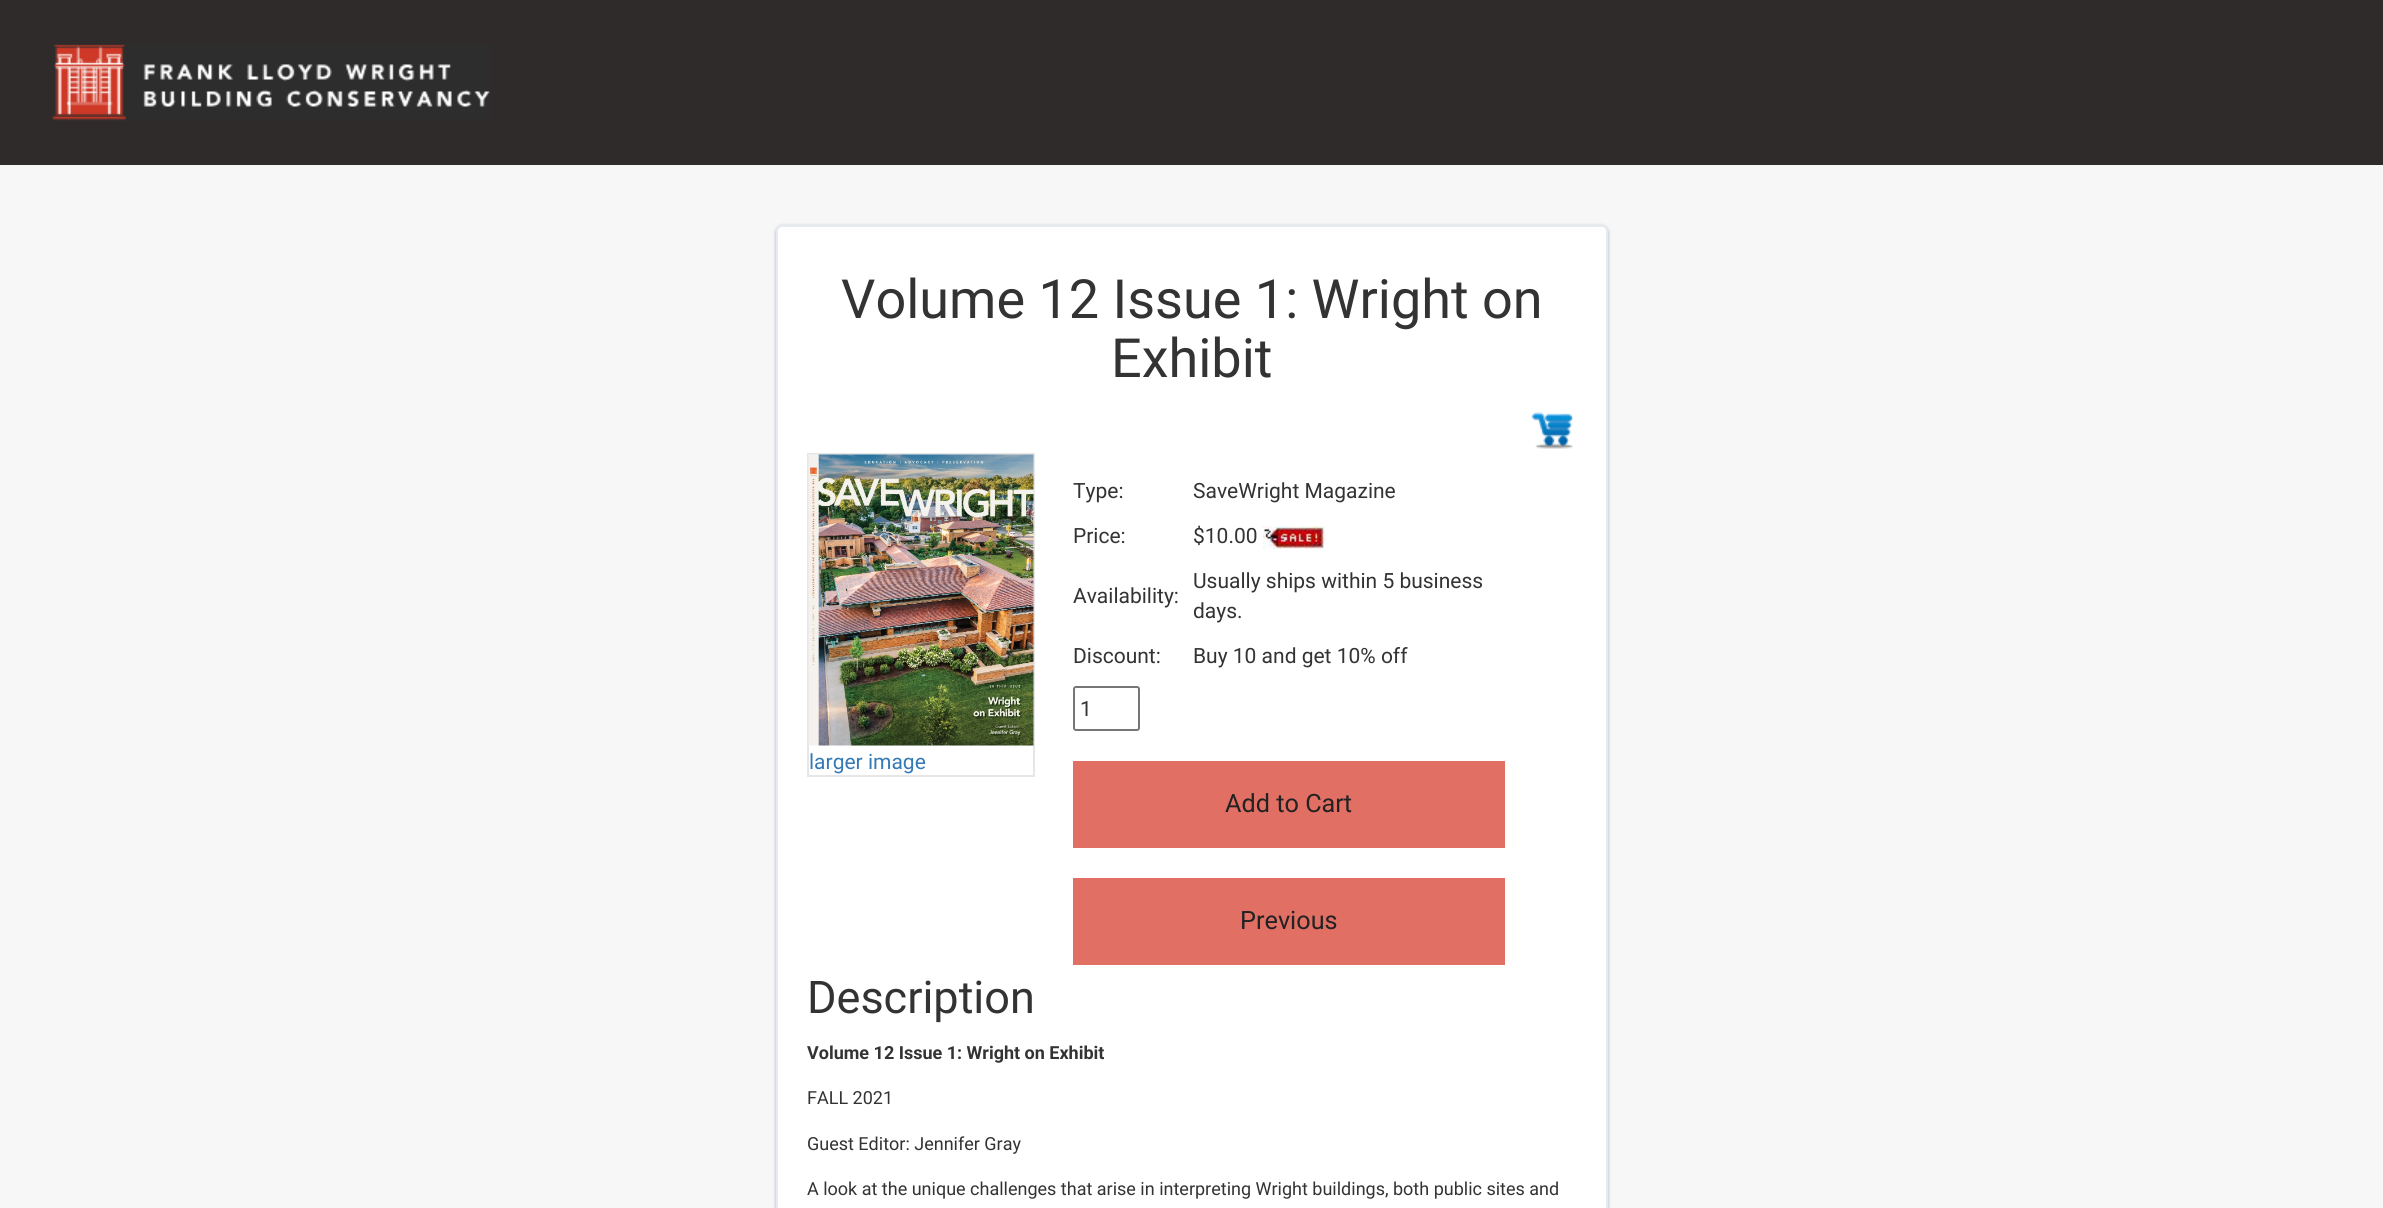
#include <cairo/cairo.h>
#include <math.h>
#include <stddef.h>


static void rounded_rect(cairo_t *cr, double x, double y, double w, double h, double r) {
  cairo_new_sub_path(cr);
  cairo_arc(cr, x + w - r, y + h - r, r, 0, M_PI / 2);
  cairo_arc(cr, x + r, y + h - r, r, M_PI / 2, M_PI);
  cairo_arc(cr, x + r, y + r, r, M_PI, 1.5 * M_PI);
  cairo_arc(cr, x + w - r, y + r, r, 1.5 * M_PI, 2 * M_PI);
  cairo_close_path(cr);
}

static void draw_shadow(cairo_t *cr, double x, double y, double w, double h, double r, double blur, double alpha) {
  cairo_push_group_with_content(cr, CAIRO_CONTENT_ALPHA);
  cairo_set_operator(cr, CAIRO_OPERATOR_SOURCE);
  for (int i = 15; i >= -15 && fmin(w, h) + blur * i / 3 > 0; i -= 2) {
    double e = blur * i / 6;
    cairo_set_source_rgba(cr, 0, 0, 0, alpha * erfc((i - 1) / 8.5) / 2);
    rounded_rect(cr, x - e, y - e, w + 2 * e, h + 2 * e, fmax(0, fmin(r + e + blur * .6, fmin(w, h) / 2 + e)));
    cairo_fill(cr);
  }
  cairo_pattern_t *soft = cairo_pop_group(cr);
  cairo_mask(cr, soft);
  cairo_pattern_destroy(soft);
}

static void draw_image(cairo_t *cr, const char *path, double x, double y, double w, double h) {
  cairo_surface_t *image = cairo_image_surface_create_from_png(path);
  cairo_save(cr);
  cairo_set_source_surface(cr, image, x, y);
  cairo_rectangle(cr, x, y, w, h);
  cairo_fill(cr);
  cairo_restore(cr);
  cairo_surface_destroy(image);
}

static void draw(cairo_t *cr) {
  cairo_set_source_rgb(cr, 247 / 255.0, 247 / 255.0, 248 / 255.0);
  cairo_paint(cr);
  cairo_set_source_rgb(cr, 48 / 255.0, 43 / 255.0, 43 / 255.0);
  cairo_rectangle(cr, 0, 0, 2383, 165);
  cairo_fill(cr);
  draw_image(cr, "images/1.png", 52, 44, 438, 77);
  cairo_set_source_rgb(cr, 47 / 255.0, 73 / 255.0, 117 / 255.0);
  draw_shadow(cr, 776, 227, 832, 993, 6, 2, 0.2);
  draw_shadow(cr, 776, 228, 832, 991, 6, 1.5, 0.12);
  draw_shadow(cr, 776, 225, 832, 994, 6, 1.5, 0.14);
  cairo_set_source_rgb(cr, 1, 1, 1);
  rounded_rect(cr, 777, 226, 830, 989, 5);
  cairo_fill_preserve(cr);
  cairo_set_source_rgb(cr, 230 / 255.0, 233 / 255.0, 238 / 255.0);
  cairo_stroke(cr);
  draw_image(cr, "images/2.png", 1531, 412, 42, 37);
  cairo_rectangle(cr, 808, 454, 226, 322);
  cairo_set_source_rgb(cr, 230 / 255.0, 230 / 255.0, 230 / 255.0);
  cairo_stroke(cr);
  draw_image(cr, "images/3.png", 808, 454, 226, 292);
  draw_image(cr, "images/4.png", 1263, 526, 62, 23);
  rounded_rect(cr, 1074, 687, 65, 43, 2);
  cairo_set_source_rgb(cr, 118 / 255.0, 118 / 255.0, 118 / 255.0);
  cairo_stroke(cr);
  cairo_set_source_rgb(cr, 225 / 255.0, 111 / 255.0, 100 / 255.0);
  cairo_rectangle(cr, 1073, 761, 432, 87);
  cairo_fill(cr);
  cairo_rectangle(cr, 1073, 878, 432, 87);
  cairo_fill(cr);
  cairo_select_font_face(cr, "Roboto", CAIRO_FONT_SLANT_NORMAL, CAIRO_FONT_WEIGHT_NORMAL);
  cairo_set_font_size(cr, 54);
  cairo_set_source_rgb(cr, 51 / 255.0, 51 / 255.0, 51 / 255.0);
  cairo_move_to(cr, 841, 318);
  cairo_show_text(cr, "Volume 12 Issue 1: Wright on");
  cairo_move_to(cr, 1111, 377);
  cairo_show_text(cr, "Exhibit");
  cairo_set_font_size(cr, 21);
  cairo_set_source_rgb(cr, 51 / 255.0, 122 / 255.0, 183 / 255.0);
  cairo_move_to(cr, 809, 769);
  cairo_show_text(cr, "larger image");
  cairo_set_source_rgb(cr, 51 / 255.0, 51 / 255.0, 51 / 255.0);
  cairo_move_to(cr, 1073, 498);
  cairo_show_text(cr, "Type:");
  cairo_move_to(cr, 1193, 498);
  cairo_show_text(cr, "SaveWright Magazine");
  cairo_move_to(cr, 1073, 543);
  cairo_show_text(cr, "Price:");
  cairo_move_to(cr, 1193, 543);
  cairo_show_text(cr, "$10.00");
  cairo_move_to(cr, 1073, 603);
  cairo_show_text(cr, "Availability:");
  cairo_move_to(cr, 1193, 588);
  cairo_show_text(cr, "Usually ships within 5 business");
  cairo_move_to(cr, 1193, 618);
  cairo_show_text(cr, "days.");
  cairo_move_to(cr, 1073, 663);
  cairo_show_text(cr, "Discount:");
  cairo_move_to(cr, 1193, 663);
  cairo_show_text(cr, "Buy 10 and get 10% off");
  cairo_move_to(cr, 1080, 716);
  cairo_show_text(cr, "1");
  cairo_set_font_size(cr, 25.25);
  cairo_set_source_rgb(cr, 34 / 255.0, 34 / 255.0, 34 / 255.0);
  cairo_move_to(cr, 1225, 812);
  cairo_show_text(cr, "Add to Cart");
  cairo_move_to(cr, 1240, 929);
  cairo_show_text(cr, "Previous");
  cairo_set_font_size(cr, 45);
  cairo_set_source_rgb(cr, 51 / 255.0, 51 / 255.0, 51 / 255.0);
  cairo_move_to(cr, 807, 1013);
  cairo_show_text(cr, "Description");
  cairo_select_font_face(cr, "Roboto", CAIRO_FONT_SLANT_NORMAL, CAIRO_FONT_WEIGHT_BOLD);
  cairo_set_font_size(cr, 18);
  cairo_move_to(cr, 807, 1059);
  cairo_show_text(cr, "Volume 12 Issue 1: Wright on Exhibit");
  cairo_select_font_face(cr, "Roboto", CAIRO_FONT_SLANT_NORMAL, CAIRO_FONT_WEIGHT_NORMAL);
  cairo_move_to(cr, 807, 1104);
  cairo_show_text(cr, "FALL 2021");
  cairo_move_to(cr, 807, 1150);
  cairo_show_text(cr, "Guest Editor: Jennifer Gray");
  cairo_move_to(cr, 807, 1195);
  cairo_show_text(cr, "A look at the unique challenges that arise in interpreting Wright buildings, both public sites and");
}

int main(void) {
  cairo_surface_t *surface = cairo_image_surface_create(CAIRO_FORMAT_RGB24, 2383, 1208);
  cairo_t *cr = cairo_create(surface);
  cairo_font_options_t *options = cairo_font_options_create();
  cairo_font_options_set_hint_metrics(options, CAIRO_HINT_METRICS_OFF);
  cairo_font_options_set_hint_style(options, CAIRO_HINT_STYLE_NONE);
  cairo_set_font_options(cr, options);
  cairo_set_miter_limit(cr, 4);
  draw(cr);
  cairo_surface_write_to_png(surface, "out.png");
  cairo_font_options_destroy(options);
  cairo_destroy(cr);
  cairo_surface_destroy(surface);
  return 0;
}
